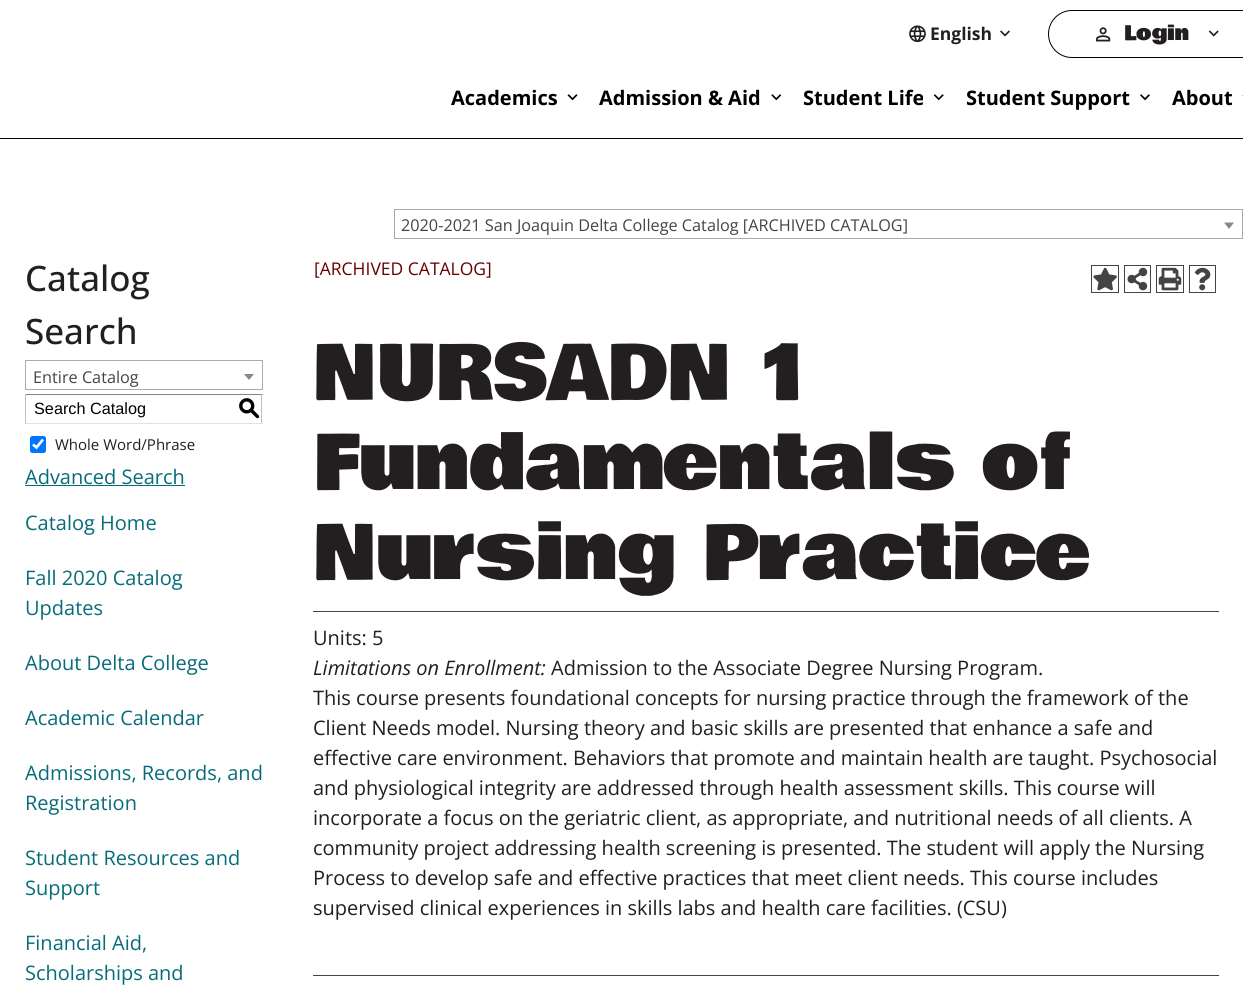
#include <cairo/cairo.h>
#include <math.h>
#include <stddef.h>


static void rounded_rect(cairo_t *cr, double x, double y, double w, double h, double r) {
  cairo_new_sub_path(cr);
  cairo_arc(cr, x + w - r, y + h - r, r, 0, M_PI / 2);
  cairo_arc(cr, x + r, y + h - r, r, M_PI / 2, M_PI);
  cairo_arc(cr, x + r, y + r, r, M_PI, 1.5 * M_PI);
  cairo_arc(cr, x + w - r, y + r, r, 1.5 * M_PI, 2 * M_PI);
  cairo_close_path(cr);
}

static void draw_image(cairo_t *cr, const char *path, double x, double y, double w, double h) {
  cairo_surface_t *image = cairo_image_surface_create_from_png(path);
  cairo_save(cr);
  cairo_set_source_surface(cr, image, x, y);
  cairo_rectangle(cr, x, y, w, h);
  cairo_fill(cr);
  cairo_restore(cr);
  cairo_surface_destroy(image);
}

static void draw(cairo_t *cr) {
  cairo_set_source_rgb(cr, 1, 1, 1);
  cairo_paint(cr);
  draw_image(cr, "images/1.png", 909, 25, 17, 18);
  draw_image(cr, "images/2.png", 1000, 30, 10, 7);
  rounded_rect(cr, 1048.5, 10.5, 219, 47, 23.5);
  cairo_set_source_rgb(cr, 0, 0, 0);
  cairo_set_line_width(cr, 1);
  cairo_stroke(cr);
  draw_image(cr, "images/3.png", 1096, 27, 15, 15);
  draw_image(cr, "images/4.png", 1208, 30, 11, 7);
  draw_image(cr, "images/5.png", 567, 94, 11, 7);
  draw_image(cr, "images/6.png", 771, 94, 11, 7);
  draw_image(cr, "images/7.png", 933, 94, 11, 7);
  draw_image(cr, "images/8.png", 1140, 94, 10, 7);
  cairo_set_source_rgb(cr, 194 / 255.0, 194 / 255.0, 194 / 255.0);
  cairo_rectangle(cr, 1242, 95, 1, 1);
  cairo_fill(cr);
  cairo_set_source_rgb(cr, 0, 0, 0);
  cairo_rectangle(cr, 0, 138, 1243, 1);
  cairo_fill(cr);
  cairo_rectangle(cr, 394.5, 209.5, 848, 29);
  cairo_set_source_rgb(cr, 170 / 255.0, 170 / 255.0, 170 / 255.0);
  cairo_stroke(cr);
  cairo_set_source_rgb(cr, 136 / 255.0, 136 / 255.0, 136 / 255.0);
  cairo_new_path(cr);
  cairo_move_to(cr, 1224, 222.5);
  cairo_line_to(cr, 1234, 222.5);
  cairo_line_to(cr, 1229, 229);
  cairo_close_path(cr);
  cairo_fill(cr);
  cairo_rectangle(cr, 25.5, 360.5, 237, 29);
  cairo_set_source_rgb(cr, 170 / 255.0, 170 / 255.0, 170 / 255.0);
  cairo_stroke(cr);
  cairo_set_source_rgb(cr, 136 / 255.0, 136 / 255.0, 136 / 255.0);
  cairo_new_path(cr);
  cairo_move_to(cr, 244, 374);
  cairo_line_to(cr, 254, 374);
  cairo_line_to(cr, 249, 380);
  cairo_close_path(cr);
  cairo_fill(cr);
  cairo_set_source_rgb(cr, 132 / 255.0, 132 / 255.0, 132 / 255.0);
  cairo_rectangle(cr, 25, 394, 238, 1);
  cairo_fill(cr);
  cairo_set_source_rgb(cr, 193 / 255.0, 193 / 255.0, 193 / 255.0);
  cairo_rectangle(cr, 261, 394, 1, 30);
  cairo_fill(cr);
  cairo_set_source_rgb(cr, 225 / 255.0, 225 / 255.0, 225 / 255.0);
  cairo_rectangle(cr, 25, 423, 238, 1);
  cairo_fill(cr);
  cairo_set_source_rgb(cr, 193 / 255.0, 193 / 255.0, 193 / 255.0);
  cairo_rectangle(cr, 25, 394, 1, 30);
  cairo_fill(cr);
  cairo_set_source_rgb(cr, 0, 117 / 255.0, 1);
  rounded_rect(cr, 30, 436, 16, 17, 2.5);
  cairo_fill(cr);
  cairo_new_path(cr);
  cairo_move_to(cr, 33, 444.5);
  cairo_line_to(cr, 36.5, 447.5);
  cairo_line_to(cr, 43, 439.5);
  cairo_set_source_rgb(cr, 1, 1, 1);
  cairo_set_line_width(cr, 2.6);
  cairo_stroke(cr);
  cairo_set_source_rgb(cr, 7 / 255.0, 108 / 255.0, 122 / 255.0);
  cairo_rectangle(cr, 25, 485, 160, 1);
  cairo_fill(cr);
  cairo_rectangle(cr, 1091.5, 265.5, 27, 27);
  cairo_set_source_rgb(cr, 68 / 255.0, 68 / 255.0, 68 / 255.0);
  cairo_set_line_width(cr, 1);
  cairo_stroke(cr);
  draw_image(cr, "images/9.png", 1093, 267, 24, 24);
  cairo_rectangle(cr, 1124.5, 265.5, 26, 27);
  cairo_stroke(cr);
  draw_image(cr, "images/10.png", 1127, 267, 21, 24);
  cairo_rectangle(cr, 1156.5, 265.5, 27, 27);
  cairo_stroke(cr);
  draw_image(cr, "images/11.png", 1158, 267, 24, 24);
  cairo_rectangle(cr, 1189.5, 265.5, 26, 27);
  cairo_stroke(cr);
  draw_image(cr, "images/12.png", 1194, 267, 17, 24);
  cairo_rectangle(cr, 313, 611, 906, 1);
  cairo_fill(cr);
  cairo_rectangle(cr, 313, 975, 906, 1);
  cairo_fill(cr);
  cairo_select_font_face(cr, "Open Sans", CAIRO_FONT_SLANT_NORMAL, CAIRO_FONT_WEIGHT_BOLD);
  cairo_set_font_size(cr, 17.5);
  cairo_set_source_rgb(cr, 35 / 255.0, 31 / 255.0, 32 / 255.0);
  cairo_move_to(cr, 930, 40);
  cairo_show_text(cr, "English");
  cairo_select_font_face(cr, "Bowlby One", CAIRO_FONT_SLANT_NORMAL, CAIRO_FONT_WEIGHT_NORMAL);
  cairo_set_font_size(cr, 20);
  cairo_move_to(cr, 1124, 40);
  cairo_show_text(cr, "Login");
  cairo_select_font_face(cr, "Open Sans", CAIRO_FONT_SLANT_NORMAL, CAIRO_FONT_WEIGHT_BOLD);
  cairo_set_source_rgb(cr, 0, 0, 0);
  cairo_move_to(cr, 451, 105);
  cairo_show_text(cr, "Academics");
  cairo_move_to(cr, 599, 105);
  cairo_show_text(cr, "Admission & Aid");
  cairo_move_to(cr, 803, 105);
  cairo_show_text(cr, "Student Life");
  cairo_move_to(cr, 966, 105);
  cairo_show_text(cr, "Student Support");
  cairo_move_to(cr, 1172, 105);
  cairo_show_text(cr, "About");
  cairo_select_font_face(cr, "Open Sans", CAIRO_FONT_SLANT_NORMAL, CAIRO_FONT_WEIGHT_NORMAL);
  cairo_set_font_size(cr, 16.25);
  cairo_set_source_rgb(cr, 68 / 255.0, 68 / 255.0, 68 / 255.0);
  cairo_move_to(cr, 401, 231);
  cairo_show_text(cr, "2020-2021 San Joaquin Delta College Catalog [ARCHIVED CATALOG]");
  cairo_select_font_face(cr, "Open Sans Medium", CAIRO_FONT_SLANT_NORMAL, CAIRO_FONT_WEIGHT_NORMAL);
  cairo_set_font_size(cr, 35);
  cairo_set_source_rgb(cr, 35 / 255.0, 31 / 255.0, 32 / 255.0);
  cairo_move_to(cr, 25, 291);
  cairo_show_text(cr, "Catalog");
  cairo_move_to(cr, 25, 344);
  cairo_show_text(cr, "Search");
  cairo_select_font_face(cr, "Open Sans", CAIRO_FONT_SLANT_NORMAL, CAIRO_FONT_WEIGHT_NORMAL);
  cairo_set_font_size(cr, 16.25);
  cairo_set_source_rgb(cr, 68 / 255.0, 68 / 255.0, 68 / 255.0);
  cairo_move_to(cr, 33, 383);
  cairo_show_text(cr, "Entire Catalog");
  cairo_select_font_face(cr, "Liberation Sans", CAIRO_FONT_SLANT_NORMAL, CAIRO_FONT_WEIGHT_NORMAL);
  cairo_set_source_rgb(cr, 0, 0, 0);
  cairo_move_to(cr, 34, 414);
  cairo_show_text(cr, "Search Catalog");
  cairo_select_font_face(cr, "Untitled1 Medium", CAIRO_FONT_SLANT_NORMAL, CAIRO_FONT_WEIGHT_NORMAL);
  cairo_set_font_size(cr, 22);
  cairo_move_to(cr, 238, 415);
  cairo_show_text(cr, "S");
  cairo_select_font_face(cr, "Open Sans", CAIRO_FONT_SLANT_NORMAL, CAIRO_FONT_WEIGHT_NORMAL);
  cairo_set_font_size(cr, 15);
  cairo_set_source_rgb(cr, 35 / 255.0, 31 / 255.0, 32 / 255.0);
  cairo_move_to(cr, 55, 450);
  cairo_show_text(cr, "Whole Word/Phrase");
  cairo_set_font_size(cr, 20);
  cairo_set_source_rgb(cr, 7 / 255.0, 108 / 255.0, 122 / 255.0);
  cairo_move_to(cr, 25, 484);
  cairo_show_text(cr, "Advanced Search");
  cairo_move_to(cr, 25, 530);
  cairo_show_text(cr, "Catalog Home");
  cairo_move_to(cr, 25, 585);
  cairo_show_text(cr, "Fall 2020 Catalog");
  cairo_move_to(cr, 25, 615);
  cairo_show_text(cr, "Updates");
  cairo_move_to(cr, 25, 670);
  cairo_show_text(cr, "About Delta College");
  cairo_move_to(cr, 25, 725);
  cairo_show_text(cr, "Academic Calendar");
  cairo_move_to(cr, 25, 780);
  cairo_show_text(cr, "Admissions, Records, and");
  cairo_move_to(cr, 25, 810);
  cairo_show_text(cr, "Registration");
  cairo_move_to(cr, 25, 865);
  cairo_show_text(cr, "Student Resources and");
  cairo_move_to(cr, 25, 895);
  cairo_show_text(cr, "Support");
  cairo_move_to(cr, 25, 950);
  cairo_show_text(cr, "Financial Aid,");
  cairo_move_to(cr, 25, 980);
  cairo_show_text(cr, "Scholarships and");
  cairo_set_font_size(cr, 17.5);
  cairo_set_source_rgb(cr, 102 / 255.0, 0, 0);
  cairo_move_to(cr, 314, 275);
  cairo_show_text(cr, "[ARCHIVED CATALOG]");
  cairo_select_font_face(cr, "Bowlby One", CAIRO_FONT_SLANT_NORMAL, CAIRO_FONT_WEIGHT_NORMAL);
  cairo_set_font_size(cr, 75);
  cairo_set_source_rgb(cr, 35 / 255.0, 31 / 255.0, 32 / 255.0);
  cairo_move_to(cr, 313, 399);
  cairo_show_text(cr, "NURSADN 1");
  cairo_move_to(cr, 313, 489);
  cairo_show_text(cr, "Fundamentals of");
  cairo_move_to(cr, 313, 579);
  cairo_show_text(cr, "Nursing Practice");
  cairo_select_font_face(cr, "Open Sans", CAIRO_FONT_SLANT_NORMAL, CAIRO_FONT_WEIGHT_NORMAL);
  cairo_set_font_size(cr, 20);
  cairo_move_to(cr, 313, 645);
  cairo_show_text(cr, "Units: 5");
  cairo_select_font_face(cr, "Open Sans", CAIRO_FONT_SLANT_ITALIC, CAIRO_FONT_WEIGHT_NORMAL);
  cairo_move_to(cr, 313, 675);
  cairo_show_text(cr, "Limitations on Enrollment:");
  cairo_select_font_face(cr, "Open Sans", CAIRO_FONT_SLANT_NORMAL, CAIRO_FONT_WEIGHT_NORMAL);
  cairo_move_to(cr, 551, 675);
  cairo_show_text(cr, "Admission to the Associate Degree Nursing Program.");
  cairo_move_to(cr, 313, 705);
  cairo_show_text(cr, "This course presents foundational concepts for nursing practice through the framework of the");
  cairo_move_to(cr, 313, 735);
  cairo_show_text(cr, "Client Needs model. Nursing theory and basic skills are presented that enhance a safe and");
  cairo_move_to(cr, 313, 765);
  cairo_show_text(cr, "effective care environment. Behaviors that promote and maintain health are taught. Psychosocial");
  cairo_move_to(cr, 313, 795);
  cairo_show_text(cr, "and physiological integrity are addressed through health assessment skills. This course will");
  cairo_move_to(cr, 313, 825);
  cairo_show_text(cr, "incorporate a focus on the geriatric client, as appropriate, and nutritional needs of all clients. A");
  cairo_move_to(cr, 313, 855);
  cairo_show_text(cr, "community project addressing health screening is presented. The student will apply the Nursing");
  cairo_move_to(cr, 313, 885);
  cairo_show_text(cr, "Process to develop safe and effective practices that meet client needs. This course includes");
  cairo_move_to(cr, 313, 915);
  cairo_show_text(cr, "supervised clinical experiences in skills labs and health care facilities. (CSU)");
}

int main(void) {
  cairo_surface_t *surface = cairo_image_surface_create(CAIRO_FORMAT_RGB24, 1243, 989);
  cairo_t *cr = cairo_create(surface);
  cairo_font_options_t *options = cairo_font_options_create();
  cairo_font_options_set_hint_metrics(options, CAIRO_HINT_METRICS_OFF);
  cairo_font_options_set_hint_style(options, CAIRO_HINT_STYLE_NONE);
  cairo_set_font_options(cr, options);
  cairo_set_miter_limit(cr, 4);
  draw(cr);
  cairo_surface_write_to_png(surface, "out.png");
  cairo_font_options_destroy(options);
  cairo_destroy(cr);
  cairo_surface_destroy(surface);
  return 0;
}
